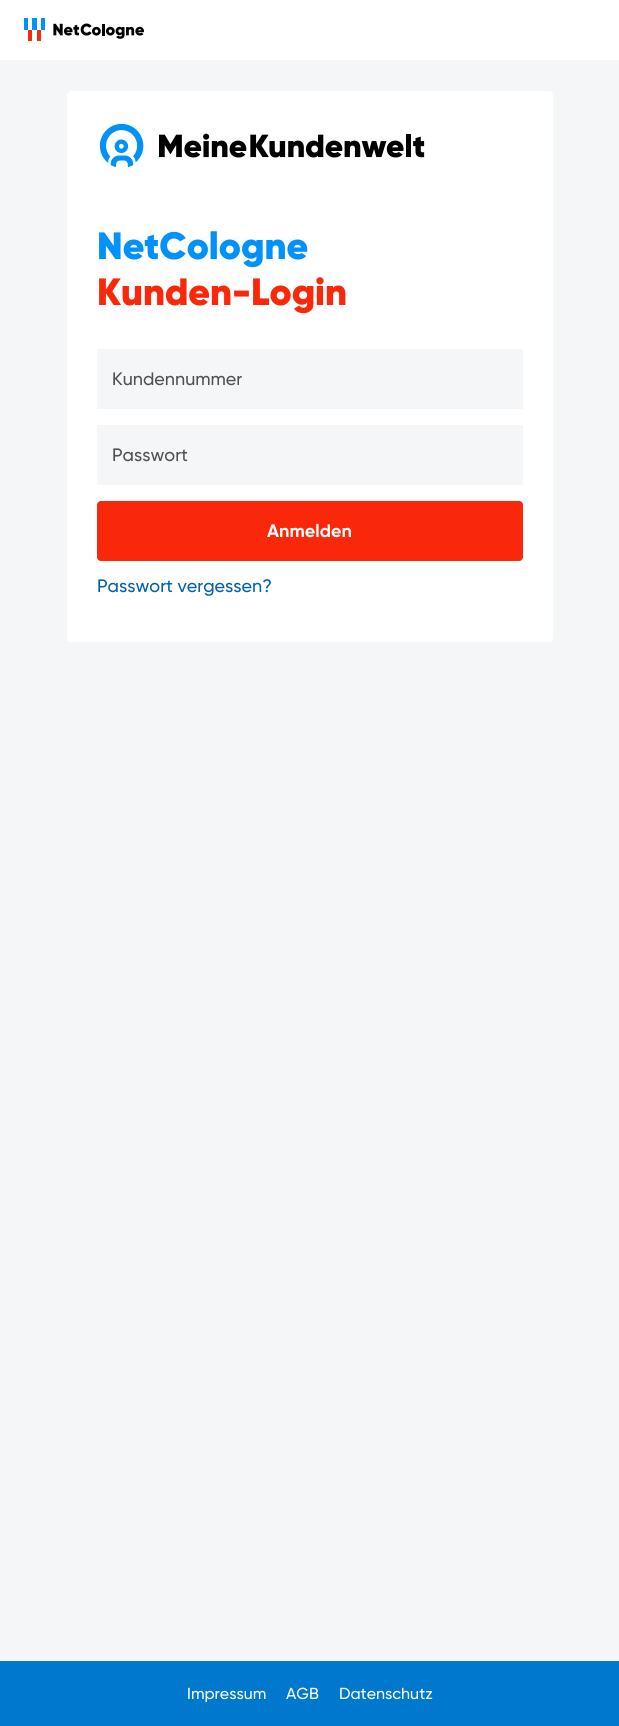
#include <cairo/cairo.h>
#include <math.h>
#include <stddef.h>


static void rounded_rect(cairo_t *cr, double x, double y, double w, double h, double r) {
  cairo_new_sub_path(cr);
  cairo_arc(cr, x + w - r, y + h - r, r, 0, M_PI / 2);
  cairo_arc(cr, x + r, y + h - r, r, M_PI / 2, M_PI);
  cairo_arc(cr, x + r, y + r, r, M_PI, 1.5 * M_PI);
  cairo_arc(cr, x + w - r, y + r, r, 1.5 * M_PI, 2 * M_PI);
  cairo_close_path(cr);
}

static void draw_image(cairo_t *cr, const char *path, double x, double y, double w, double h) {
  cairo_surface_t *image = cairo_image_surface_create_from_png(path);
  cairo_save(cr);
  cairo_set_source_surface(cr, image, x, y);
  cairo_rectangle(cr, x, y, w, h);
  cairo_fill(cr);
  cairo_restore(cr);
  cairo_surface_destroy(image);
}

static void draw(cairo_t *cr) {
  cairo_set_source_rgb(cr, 244 / 255.0, 246 / 255.0, 247 / 255.0);
  cairo_paint(cr);
  cairo_set_source_rgb(cr, 1, 1, 1);
  cairo_rectangle(cr, 0, 0, 619, 60);
  cairo_fill(cr);
  draw_image(cr, "images/1.png", 24, 18, 120, 23);
  rounded_rect(cr, 67, 91, 486, 551, 4);
  cairo_fill(cr);
  draw_image(cr, "images/2.png", 99, 123, 326, 45);
  cairo_set_source_rgb(cr, 244 / 255.0, 246 / 255.0, 247 / 255.0);
  cairo_rectangle(cr, 97, 349, 426, 60);
  cairo_fill(cr);
  cairo_rectangle(cr, 97, 425, 426, 60);
  cairo_fill(cr);
  cairo_set_source_rgb(cr, 250 / 255.0, 40 / 255.0, 10 / 255.0);
  rounded_rect(cr, 97, 501, 426, 60, 4);
  cairo_fill(cr);
  cairo_set_source_rgb(cr, 0, 120 / 255.0, 205 / 255.0);
  cairo_rectangle(cr, 0, 1661, 619, 65);
  cairo_fill(cr);
  cairo_select_font_face(cr, "Gilroy Black", CAIRO_FONT_SLANT_NORMAL, CAIRO_FONT_WEIGHT_NORMAL);
  cairo_set_font_size(cr, 38);
  cairo_set_source_rgb(cr, 0, 145 / 255.0, 250 / 255.0);
  cairo_move_to(cr, 97, 259);
  cairo_show_text(cr, "NetCologne");
  cairo_set_source_rgb(cr, 250 / 255.0, 40 / 255.0, 10 / 255.0);
  cairo_move_to(cr, 97, 305);
  cairo_show_text(cr, "Kunden-Login");
  cairo_select_font_face(cr, "Gilroy Medium", CAIRO_FONT_SLANT_NORMAL, CAIRO_FONT_WEIGHT_NORMAL);
  cairo_set_font_size(cr, 18);
  cairo_set_source_rgb(cr, 80 / 255.0, 80 / 255.0, 85 / 255.0);
  cairo_move_to(cr, 112, 385);
  cairo_show_text(cr, "Kundennummer");
  cairo_move_to(cr, 112, 461);
  cairo_show_text(cr, "Passwort");
  cairo_select_font_face(cr, "Gilroy", CAIRO_FONT_SLANT_NORMAL, CAIRO_FONT_WEIGHT_BOLD);
  cairo_set_source_rgb(cr, 1, 1, 1);
  cairo_move_to(cr, 267, 537);
  cairo_show_text(cr, "Anmelden");
  cairo_select_font_face(cr, "Gilroy Medium", CAIRO_FONT_SLANT_NORMAL, CAIRO_FONT_WEIGHT_NORMAL);
  cairo_set_source_rgb(cr, 0, 95 / 255.0, 175 / 255.0);
  cairo_move_to(cr, 97, 592);
  cairo_show_text(cr, "Passwort vergessen?");
  cairo_set_font_size(cr, 16);
  cairo_set_source_rgb(cr, 1, 1, 1);
  cairo_move_to(cr, 187, 1699);
  cairo_show_text(cr, "Impressum");
  cairo_move_to(cr, 286, 1699);
  cairo_show_text(cr, "AGB");
  cairo_move_to(cr, 339, 1699);
  cairo_show_text(cr, "Datenschutz");
}

int main(void) {
  cairo_surface_t *surface = cairo_image_surface_create(CAIRO_FORMAT_RGB24, 619, 1726);
  cairo_t *cr = cairo_create(surface);
  cairo_font_options_t *options = cairo_font_options_create();
  cairo_font_options_set_hint_metrics(options, CAIRO_HINT_METRICS_OFF);
  cairo_font_options_set_hint_style(options, CAIRO_HINT_STYLE_NONE);
  cairo_set_font_options(cr, options);
  cairo_set_miter_limit(cr, 4);
  draw(cr);
  cairo_surface_write_to_png(surface, "out.png");
  cairo_font_options_destroy(options);
  cairo_destroy(cr);
  cairo_surface_destroy(surface);
  return 0;
}
